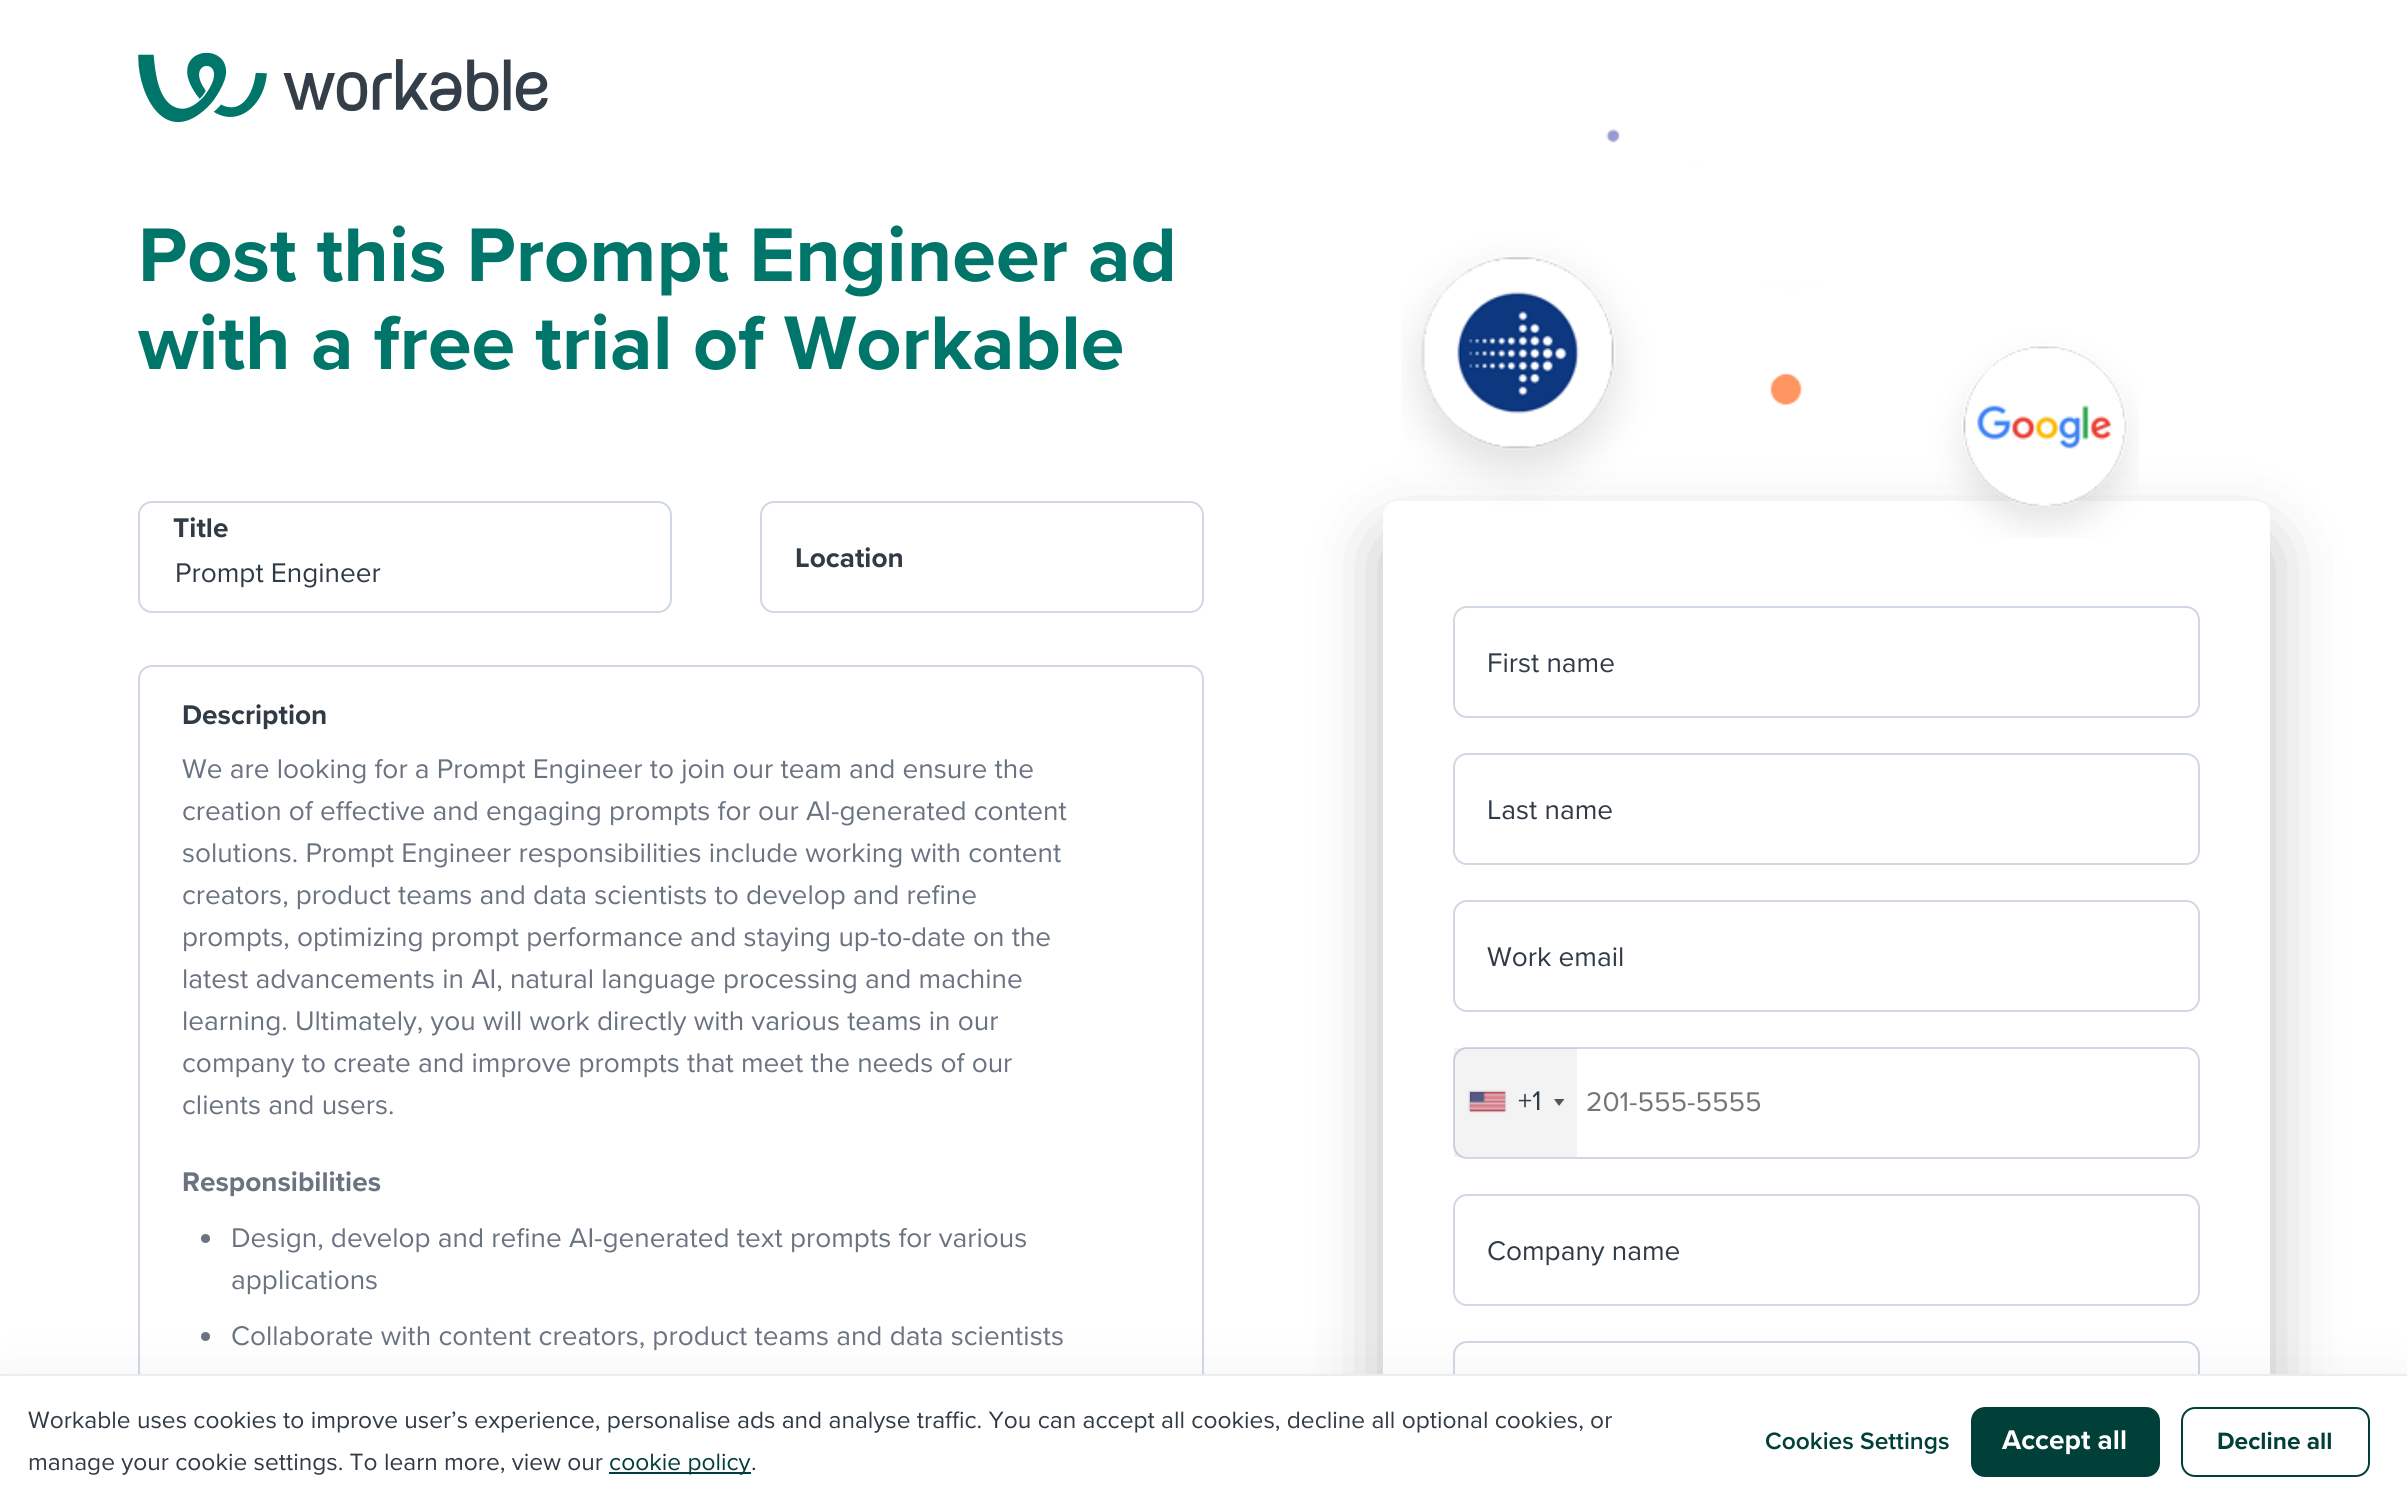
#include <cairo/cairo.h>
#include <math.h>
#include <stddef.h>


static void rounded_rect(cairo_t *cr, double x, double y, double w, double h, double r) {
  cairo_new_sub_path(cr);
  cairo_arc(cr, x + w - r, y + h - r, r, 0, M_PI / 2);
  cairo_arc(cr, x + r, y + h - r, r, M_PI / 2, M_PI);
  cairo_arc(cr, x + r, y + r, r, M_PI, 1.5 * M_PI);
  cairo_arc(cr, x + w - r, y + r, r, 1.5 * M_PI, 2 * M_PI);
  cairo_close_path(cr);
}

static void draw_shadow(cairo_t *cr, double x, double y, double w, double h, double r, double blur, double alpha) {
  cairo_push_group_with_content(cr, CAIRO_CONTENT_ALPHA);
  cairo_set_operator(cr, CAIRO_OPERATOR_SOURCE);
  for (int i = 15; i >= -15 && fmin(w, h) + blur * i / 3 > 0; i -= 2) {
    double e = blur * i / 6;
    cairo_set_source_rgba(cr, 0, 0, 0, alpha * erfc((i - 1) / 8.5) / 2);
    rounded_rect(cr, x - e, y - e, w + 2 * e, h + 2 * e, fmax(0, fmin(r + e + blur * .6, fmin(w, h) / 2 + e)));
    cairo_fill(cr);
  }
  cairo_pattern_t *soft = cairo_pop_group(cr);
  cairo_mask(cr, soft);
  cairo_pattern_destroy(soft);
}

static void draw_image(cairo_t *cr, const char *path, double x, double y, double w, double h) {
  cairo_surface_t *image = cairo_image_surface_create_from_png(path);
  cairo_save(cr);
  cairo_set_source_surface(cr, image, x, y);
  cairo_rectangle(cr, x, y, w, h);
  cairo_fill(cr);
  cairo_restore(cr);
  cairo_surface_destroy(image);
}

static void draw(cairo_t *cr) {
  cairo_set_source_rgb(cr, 1, 1, 1);
  cairo_paint(cr);
  draw_image(cr, "images/1.png", 138, 53, 410, 70);
  cairo_set_source_rgb(cr, 0, 0, 0);
  draw_shadow(cr, 1383, 536, 887, 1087, 14, 35, 0.25);
  cairo_set_source_rgb(cr, 1, 1, 1);
  rounded_rect(cr, 1383, 501, 887, 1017, 14);
  cairo_fill(cr);
  draw_image(cr, "images/2.png", 1401, 129, 738, 409);
  rounded_rect(cr, 139, 502, 532, 110, 13);
  cairo_set_source_rgb(cr, 208 / 255.0, 216 / 255.0, 228 / 255.0);
  cairo_stroke(cr);
  rounded_rect(cr, 761, 502, 442, 110, 13);
  cairo_stroke(cr);
  rounded_rect(cr, 139, 666, 1064, 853, 13);
  cairo_stroke(cr);
  cairo_set_source_rgb(cr, 106 / 255.0, 115 / 255.0, 129 / 255.0);
  cairo_arc(cr, 205.5, 1238.5, 4.5, 0, 2 * M_PI);
  cairo_fill(cr);
  cairo_arc(cr, 205.5, 1336.5, 4.5, 0, 2 * M_PI);
  cairo_fill(cr);
  rounded_rect(cr, 1454, 607, 745, 110, 13);
  cairo_set_source_rgb(cr, 208 / 255.0, 216 / 255.0, 228 / 255.0);
  cairo_stroke(cr);
  rounded_rect(cr, 1454, 754, 745, 110, 13);
  cairo_stroke(cr);
  rounded_rect(cr, 1454, 901, 745, 110, 13);
  cairo_stroke(cr);
  rounded_rect(cr, 1454, 1048, 745, 110, 13);
  cairo_stroke(cr);
  cairo_set_source_rgba(cr, 0, 0, 0, 0.05);
  cairo_rectangle(cr, 1454, 1048, 123, 109);
  cairo_fill(cr);
  cairo_set_source_rgb(cr, 136 / 255.0, 136 / 255.0, 136 / 255.0);
  draw_shadow(cr, 1470, 1092, 35, 19, 0, 1, 1);
  draw_image(cr, "images/3.png", 1470, 1092, 35, 20);
  cairo_set_source_rgb(cr, 85 / 255.0, 85 / 255.0, 85 / 255.0);
  cairo_new_path(cr);
  cairo_move_to(cr, 1554, 1099);
  cairo_line_to(cr, 1564.5, 1099);
  cairo_line_to(cr, 1559, 1106);
  cairo_close_path(cr);
  cairo_fill(cr);
  rounded_rect(cr, 1454, 1195, 745, 110, 13);
  cairo_set_source_rgb(cr, 208 / 255.0, 216 / 255.0, 228 / 255.0);
  cairo_stroke(cr);
  rounded_rect(cr, 1454, 1342, 745, 110, 13);
  cairo_stroke(cr);
  cairo_set_source_rgb(cr, 0, 0, 0);
  draw_shadow(cr, 0, 1402, 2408, 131, 0, 37.5, 0.1);
  cairo_set_source_rgb(cr, 1, 1, 1);
  cairo_rectangle(cr, 0, 1376, 2407, 128);
  cairo_fill(cr);
  cairo_set_source_rgb(cr, 233 / 255.0, 237 / 255.0, 239 / 255.0);
  cairo_rectangle(cr, 0, 1374, 2407, 2);
  cairo_fill(cr);
  cairo_set_source_rgb(cr, 0, 64 / 255.0, 56 / 255.0);
  cairo_rectangle(cr, 609, 1472, 142, 2);
  cairo_fill(cr);
  rounded_rect(cr, 1972, 1408, 187, 68, 13);
  cairo_fill_preserve(cr);
  cairo_stroke(cr);
  rounded_rect(cr, 2182, 1408, 187, 68, 13);
  cairo_stroke(cr);
  cairo_select_font_face(cr, "Proxima Nova", CAIRO_FONT_SLANT_NORMAL, CAIRO_FONT_WEIGHT_BOLD);
  cairo_set_font_size(cr, 78.75);
  cairo_set_source_rgb(cr, 0, 117 / 255.0, 106 / 255.0);
  cairo_move_to(cr, 138, 281);
  cairo_show_text(cr, "Post this Prompt Engineer ad");
  cairo_move_to(cr, 138, 369);
  cairo_show_text(cr, "with a free trial of Workable");
  cairo_set_font_size(cr, 28);
  cairo_set_source_rgb(cr, 49 / 255.0, 59 / 255.0, 70 / 255.0);
  cairo_move_to(cr, 173, 537);
  cairo_show_text(cr, "Title");
  cairo_select_font_face(cr, "Proxima Nova", CAIRO_FONT_SLANT_NORMAL, CAIRO_FONT_WEIGHT_NORMAL);
  cairo_move_to(cr, 175, 582);
  cairo_show_text(cr, "Prompt Engineer");
  cairo_select_font_face(cr, "Proxima Nova", CAIRO_FONT_SLANT_NORMAL, CAIRO_FONT_WEIGHT_BOLD);
  cairo_move_to(cr, 795, 567);
  cairo_show_text(cr, "Location");
  cairo_move_to(cr, 182, 724);
  cairo_show_text(cr, "Description");
  cairo_select_font_face(cr, "Proxima Nova", CAIRO_FONT_SLANT_NORMAL, CAIRO_FONT_WEIGHT_NORMAL);
  cairo_set_source_rgb(cr, 106 / 255.0, 115 / 255.0, 129 / 255.0);
  cairo_move_to(cr, 182, 778);
  cairo_show_text(cr, "We are looking for a Prompt Engineer to join our team and ensure the");
  cairo_move_to(cr, 182, 820);
  cairo_show_text(cr, "creation of effective and engaging prompts for our AI-generated content");
  cairo_move_to(cr, 182, 862);
  cairo_show_text(cr, "solutions. Prompt Engineer responsibilities include working with content");
  cairo_move_to(cr, 182, 904);
  cairo_show_text(cr, "creators, product teams and data scientists to develop and refine");
  cairo_move_to(cr, 182, 946);
  cairo_show_text(cr, "prompts, optimizing prompt performance and staying up-to-date on the");
  cairo_move_to(cr, 182, 988);
  cairo_show_text(cr, "latest advancements in AI, natural language processing and machine");
  cairo_move_to(cr, 182, 1030);
  cairo_show_text(cr, "learning. Ultimately, you will work directly with various teams in our");
  cairo_move_to(cr, 182, 1072);
  cairo_show_text(cr, "company to create and improve prompts that meet the needs of our");
  cairo_move_to(cr, 182, 1114);
  cairo_show_text(cr, "clients and users.");
  cairo_select_font_face(cr, "Proxima Nova", CAIRO_FONT_SLANT_NORMAL, CAIRO_FONT_WEIGHT_BOLD);
  cairo_move_to(cr, 182, 1191);
  cairo_show_text(cr, "Responsibilities");
  cairo_select_font_face(cr, "Proxima Nova", CAIRO_FONT_SLANT_NORMAL, CAIRO_FONT_WEIGHT_NORMAL);
  cairo_move_to(cr, 231, 1247);
  cairo_show_text(cr, "Design, develop and refine AI-generated text prompts for various");
  cairo_move_to(cr, 231, 1289);
  cairo_show_text(cr, "applications");
  cairo_move_to(cr, 231, 1345);
  cairo_show_text(cr, "Collaborate with content creators, product teams and data scientists");
  cairo_set_source_rgb(cr, 49 / 255.0, 59 / 255.0, 70 / 255.0);
  cairo_move_to(cr, 1487, 672);
  cairo_show_text(cr, "First name");
  cairo_move_to(cr, 1487, 819);
  cairo_show_text(cr, "Last name");
  cairo_move_to(cr, 1487, 966);
  cairo_show_text(cr, "Work email");
  cairo_move_to(cr, 1518, 1110);
  cairo_show_text(cr, "+1");
  cairo_set_source_rgb(cr, 117 / 255.0, 117 / 255.0, 117 / 255.0);
  cairo_move_to(cr, 1586, 1111);
  cairo_show_text(cr, "201-555-5555");
  cairo_set_source_rgb(cr, 49 / 255.0, 59 / 255.0, 70 / 255.0);
  cairo_move_to(cr, 1487, 1260);
  cairo_show_text(cr, "Company name");
  cairo_set_font_size(cr, 24.5);
  cairo_move_to(cr, 28, 1428);
  cairo_show_text(cr, "Workable uses cookies to improve user’s experience, personalise ads and analyse traffic. You can accept all cookies, decline all optional cookies, or");
  cairo_move_to(cr, 28, 1470);
  cairo_show_text(cr, "manage your cookie settings. To learn more, view our");
  cairo_set_source_rgb(cr, 0, 64 / 255.0, 56 / 255.0);
  cairo_move_to(cr, 609, 1470);
  cairo_show_text(cr, "cookie policy");
  cairo_set_source_rgb(cr, 49 / 255.0, 59 / 255.0, 70 / 255.0);
  cairo_move_to(cr, 751, 1470);
  cairo_show_text(cr, ".");
  cairo_select_font_face(cr, "Proxima Nova SemiBold", CAIRO_FONT_SLANT_NORMAL, CAIRO_FONT_WEIGHT_NORMAL);
  cairo_set_source_rgb(cr, 0, 64 / 255.0, 56 / 255.0);
  cairo_move_to(cr, 1765, 1449);
  cairo_show_text(cr, "Cookies Settings");
  cairo_select_font_face(cr, "Proxima Nova", CAIRO_FONT_SLANT_NORMAL, CAIRO_FONT_WEIGHT_BOLD);
  cairo_set_font_size(cr, 28);
  cairo_set_source_rgb(cr, 1, 1, 1);
  cairo_move_to(cr, 2002, 1449);
  cairo_show_text(cr, "Accept all");
  cairo_set_font_size(cr, 24.5);
  cairo_set_source_rgb(cr, 0, 64 / 255.0, 56 / 255.0);
  cairo_move_to(cr, 2217, 1449);
  cairo_show_text(cr, "Decline all");
}

int main(void) {
  cairo_surface_t *surface = cairo_image_surface_create(CAIRO_FORMAT_RGB24, 2407, 1504);
  cairo_t *cr = cairo_create(surface);
  cairo_font_options_t *options = cairo_font_options_create();
  cairo_font_options_set_hint_metrics(options, CAIRO_HINT_METRICS_OFF);
  cairo_font_options_set_hint_style(options, CAIRO_HINT_STYLE_NONE);
  cairo_set_font_options(cr, options);
  cairo_set_miter_limit(cr, 4);
  draw(cr);
  cairo_surface_write_to_png(surface, "out.png");
  cairo_font_options_destroy(options);
  cairo_destroy(cr);
  cairo_surface_destroy(surface);
  return 0;
}
